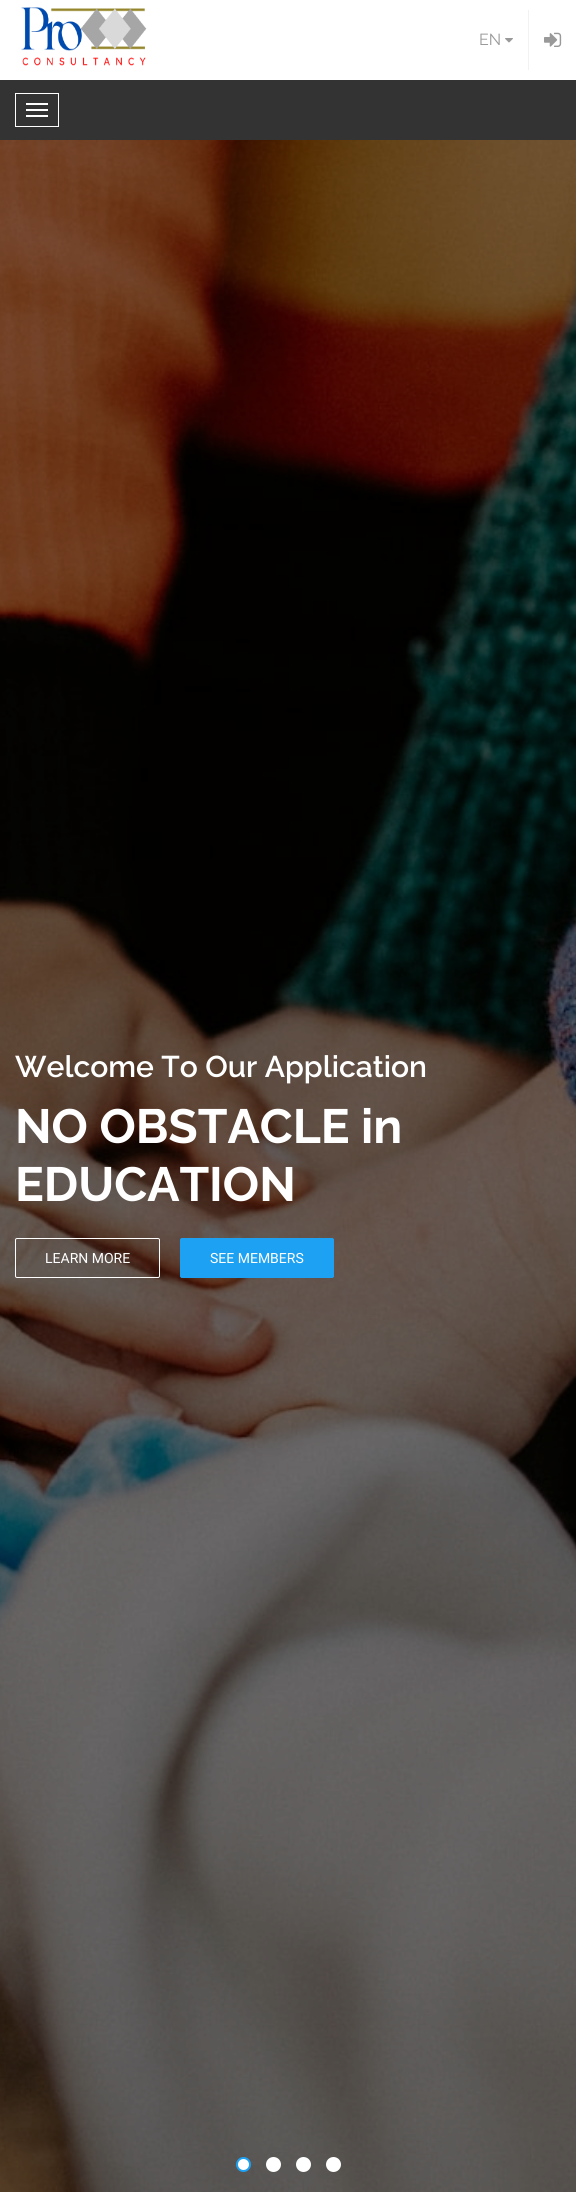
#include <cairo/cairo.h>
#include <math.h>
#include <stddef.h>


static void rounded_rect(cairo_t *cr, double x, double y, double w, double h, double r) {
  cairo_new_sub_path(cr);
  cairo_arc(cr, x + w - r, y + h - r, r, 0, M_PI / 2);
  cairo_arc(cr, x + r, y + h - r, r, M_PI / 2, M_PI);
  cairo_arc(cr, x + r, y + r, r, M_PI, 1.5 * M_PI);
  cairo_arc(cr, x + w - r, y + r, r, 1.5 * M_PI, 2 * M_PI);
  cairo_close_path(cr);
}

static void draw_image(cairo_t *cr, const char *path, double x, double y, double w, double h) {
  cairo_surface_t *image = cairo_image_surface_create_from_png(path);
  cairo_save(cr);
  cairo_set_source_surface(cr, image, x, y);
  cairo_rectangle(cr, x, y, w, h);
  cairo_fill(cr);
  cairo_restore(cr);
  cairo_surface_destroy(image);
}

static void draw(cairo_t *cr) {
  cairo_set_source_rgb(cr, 1, 1, 1);
  cairo_paint(cr);
  draw_image(cr, "images/1.png", 21, 7, 126, 59);
  cairo_set_source_rgb(cr, 242 / 255.0, 242 / 255.0, 242 / 255.0);
  cairo_rectangle(cr, 528, 10, 1, 60);
  cairo_fill(cr);
  draw_image(cr, "images/2.png", 505, 38, 8, 5);
  draw_image(cr, "images/3.png", 544, 32, 18, 15);
  cairo_set_source_rgb(cr, 51 / 255.0, 51 / 255.0, 51 / 255.0);
  cairo_rectangle(cr, 0, 80, 576, 60);
  cairo_fill(cr);
  cairo_rectangle(cr, 15.5, 93.5, 43, 33);
  cairo_set_source_rgb(cr, 1, 1, 1);
  cairo_set_line_width(cr, 1);
  cairo_stroke(cr);
  cairo_rectangle(cr, 26, 103, 22, 2);
  cairo_fill(cr);
  cairo_rectangle(cr, 26, 109, 22, 2);
  cairo_fill(cr);
  cairo_rectangle(cr, 26, 115, 22, 2);
  cairo_fill(cr);
  draw_image(cr, "images/4.png", 0, 140, 576, 2052);
  rounded_rect(cr, 15.5, 1238.5, 144, 39, 1.5);
  cairo_stroke(cr);
  cairo_set_source_rgb(cr, 29 / 255.0, 161 / 255.0, 242 / 255.0);
  rounded_rect(cr, 180.5, 1238.5, 153, 39, 1.5);
  cairo_fill_preserve(cr);
  cairo_stroke(cr);
  cairo_set_source_rgb(cr, 1, 1, 1);
  cairo_arc(cr, 243.5, 2164.5, 6.5, 0, 2 * M_PI);
  cairo_fill_preserve(cr);
  cairo_set_source_rgb(cr, 29 / 255.0, 161 / 255.0, 242 / 255.0);
  cairo_set_line_width(cr, 2);
  cairo_stroke(cr);
  cairo_set_source_rgb(cr, 1, 1, 1);
  cairo_arc(cr, 273.5, 2164.5, 7.5, 0, 2 * M_PI);
  cairo_fill(cr);
  cairo_arc(cr, 303.5, 2164.5, 7.5, 0, 2 * M_PI);
  cairo_fill(cr);
  cairo_arc(cr, 333.5, 2164.5, 7.5, 0, 2 * M_PI);
  cairo_fill(cr);
  cairo_select_font_face(cr, "Raleway", CAIRO_FONT_SLANT_NORMAL, CAIRO_FONT_WEIGHT_NORMAL);
  cairo_set_font_size(cr, 16);
  cairo_set_source_rgb(cr, 153 / 255.0, 153 / 255.0, 153 / 255.0);
  cairo_move_to(cr, 479, 45);
  cairo_show_text(cr, "EN");
  cairo_select_font_face(cr, "Raleway SemiBold", CAIRO_FONT_SLANT_NORMAL, CAIRO_FONT_WEIGHT_NORMAL);
  cairo_set_font_size(cr, 30);
  cairo_set_source_rgb(cr, 1, 1, 1);
  cairo_move_to(cr, 15, 1077);
  cairo_show_text(cr, "Welcome To Our Application");
  cairo_select_font_face(cr, "Raleway", CAIRO_FONT_SLANT_NORMAL, CAIRO_FONT_WEIGHT_BOLD);
  cairo_set_font_size(cr, 48);
  cairo_move_to(cr, 15, 1143);
  cairo_show_text(cr, "NO OBSTACLE in");
  cairo_move_to(cr, 15, 1201);
  cairo_show_text(cr, "EDUCATION");
  cairo_select_font_face(cr, "Roboto", CAIRO_FONT_SLANT_NORMAL, CAIRO_FONT_WEIGHT_NORMAL);
  cairo_set_font_size(cr, 14);
  cairo_move_to(cr, 45, 1263);
  cairo_show_text(cr, "LEARN MORE");
  cairo_move_to(cr, 210, 1263);
  cairo_show_text(cr, "SEE MEMBERS");
}

int main(void) {
  cairo_surface_t *surface = cairo_image_surface_create(CAIRO_FORMAT_RGB24, 576, 2192);
  cairo_t *cr = cairo_create(surface);
  cairo_font_options_t *options = cairo_font_options_create();
  cairo_font_options_set_hint_metrics(options, CAIRO_HINT_METRICS_OFF);
  cairo_font_options_set_hint_style(options, CAIRO_HINT_STYLE_NONE);
  cairo_set_font_options(cr, options);
  cairo_set_miter_limit(cr, 4);
  draw(cr);
  cairo_surface_write_to_png(surface, "out.png");
  cairo_font_options_destroy(options);
  cairo_destroy(cr);
  cairo_surface_destroy(surface);
  return 0;
}
